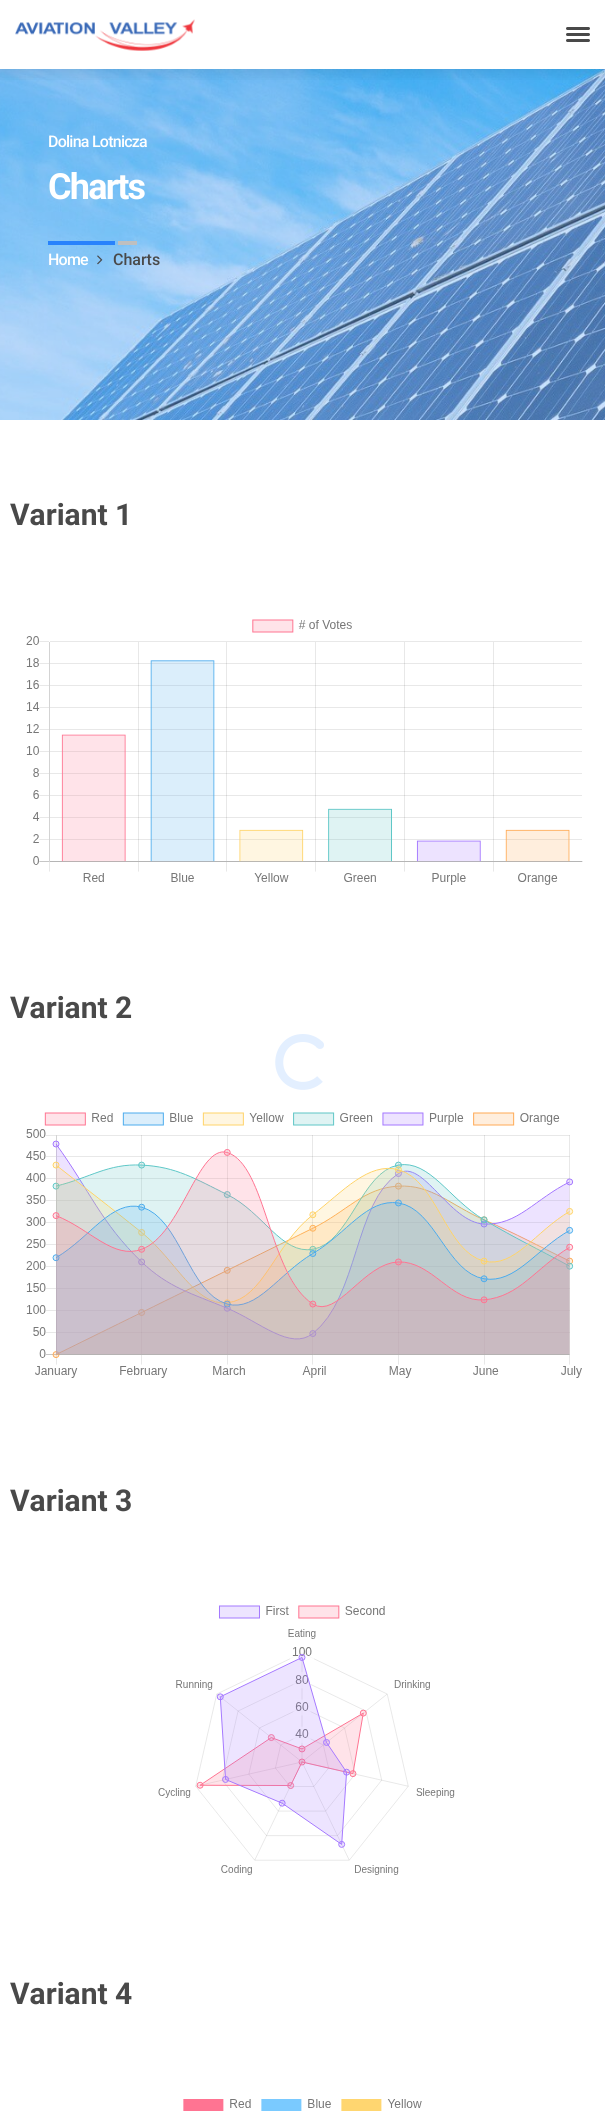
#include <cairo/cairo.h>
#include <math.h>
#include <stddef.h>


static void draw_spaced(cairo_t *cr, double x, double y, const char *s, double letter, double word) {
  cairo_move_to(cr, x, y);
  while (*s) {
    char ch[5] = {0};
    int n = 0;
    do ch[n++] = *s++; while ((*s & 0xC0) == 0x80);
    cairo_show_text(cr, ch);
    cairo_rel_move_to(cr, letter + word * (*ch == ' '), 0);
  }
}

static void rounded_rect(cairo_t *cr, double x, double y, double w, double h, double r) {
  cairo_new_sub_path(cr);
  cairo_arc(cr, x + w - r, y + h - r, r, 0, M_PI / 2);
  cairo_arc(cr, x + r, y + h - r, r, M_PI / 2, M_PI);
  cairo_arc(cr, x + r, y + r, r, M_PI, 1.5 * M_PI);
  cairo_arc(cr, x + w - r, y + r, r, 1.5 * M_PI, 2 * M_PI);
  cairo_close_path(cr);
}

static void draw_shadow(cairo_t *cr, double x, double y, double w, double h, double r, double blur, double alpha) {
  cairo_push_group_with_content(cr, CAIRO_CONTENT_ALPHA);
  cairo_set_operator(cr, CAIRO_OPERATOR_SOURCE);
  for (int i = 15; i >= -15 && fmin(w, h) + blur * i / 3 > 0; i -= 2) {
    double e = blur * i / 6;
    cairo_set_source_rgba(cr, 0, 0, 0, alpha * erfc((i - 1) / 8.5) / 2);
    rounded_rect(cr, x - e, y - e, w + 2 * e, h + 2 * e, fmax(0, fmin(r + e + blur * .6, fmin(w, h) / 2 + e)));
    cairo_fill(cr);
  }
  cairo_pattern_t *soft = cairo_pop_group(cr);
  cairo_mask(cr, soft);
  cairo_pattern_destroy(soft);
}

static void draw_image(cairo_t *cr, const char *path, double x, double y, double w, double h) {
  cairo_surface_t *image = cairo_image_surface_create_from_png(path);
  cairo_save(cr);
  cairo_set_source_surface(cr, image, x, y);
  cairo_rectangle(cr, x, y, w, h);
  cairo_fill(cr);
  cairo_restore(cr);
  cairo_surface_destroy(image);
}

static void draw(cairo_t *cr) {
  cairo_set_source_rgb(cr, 1, 1, 1);
  cairo_paint(cr);
  draw_image(cr, "images/2.png", 0, 69, 605, 351);
  cairo_save(cr);
  cairo_rectangle(cr, 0, 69, 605, 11);
  cairo_clip(cr);
  cairo_set_source_rgb(cr, 28 / 255.0, 28 / 255.0, 28 / 255.0);
  draw_shadow(cr, -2, 1, 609, 73, 0, 7.5, 0.1);
  cairo_restore(cr);
  draw_image(cr, "images/1.png", 15, 19, 180, 32);
  cairo_set_source_rgb(cr, 73 / 255.0, 73 / 255.0, 73 / 255.0);
  rounded_rect(cr, 566, 33, 24, 3, 1.5);
  cairo_fill(cr);
  rounded_rect(cr, 566, 27, 24, 3, 1.5);
  cairo_fill(cr);
  rounded_rect(cr, 566, 39, 24, 3, 1.5);
  cairo_fill(cr);
  cairo_set_source_rgb(cr, 40 / 255.0, 130 / 255.0, 252 / 255.0);
  cairo_rectangle(cr, 48, 241, 67, 4);
  cairo_fill(cr);
  cairo_set_source_rgb(cr, 191 / 255.0, 191 / 255.0, 191 / 255.0);
  cairo_rectangle(cr, 118, 241, 19, 4);
  cairo_fill(cr);
  draw_image(cr, "images/3.png", 97, 255, 6, 10);
  draw_image(cr, "images/4.png", 26, 619, 557, 266);
  draw_image(cr, "images/5.png", 26, 1112, 556, 266);
  draw_image(cr, "images/6.png", 158, 1605, 297, 270);
  draw_image(cr, "images/7.png", 183, 2099, 239, 12);
  cairo_new_path(cr);
  cairo_move_to(cr, 320, 1079);
  cairo_curve_to(cr, 314.5, 1084.5, 306, 1087, 298.5, 1085.5);
  cairo_curve_to(cr, 270, 1080, 274.5, 1038, 303, 1038);
  cairo_curve_to(cr, 309.5, 1038, 315.5, 1040.5, 320, 1045);
  cairo_set_source_rgb(cr, 227 / 255.0, 239 / 255.0, 1);
  cairo_set_line_width(cr, 8);
  cairo_stroke(cr);
  cairo_arc(cr, 320, 1045, 4, 0, 2 * M_PI);
  cairo_fill(cr);
  cairo_select_font_face(cr, "Roboto Medium", CAIRO_FONT_SLANT_NORMAL, CAIRO_FONT_WEIGHT_NORMAL);
  cairo_set_font_size(cr, 16);
  cairo_set_source_rgb(cr, 1, 1, 1);
  draw_spaced(cr, 48, 147, "Dolina Lotnicza", -0.75, 0);
  cairo_select_font_face(cr, "Roboto", CAIRO_FONT_SLANT_NORMAL, CAIRO_FONT_WEIGHT_BOLD);
  cairo_set_font_size(cr, 36);
  draw_spaced(cr, 48, 199, "Charts", -1.75, 0);
  cairo_select_font_face(cr, "Roboto Medium", CAIRO_FONT_SLANT_NORMAL, CAIRO_FONT_WEIGHT_NORMAL);
  cairo_set_font_size(cr, 16);
  draw_spaced(cr, 48, 265, "Home", -0.75, 0);
  cairo_set_source_rgb(cr, 73 / 255.0, 73 / 255.0, 73 / 255.0);
  cairo_move_to(cr, 113, 265);
  cairo_show_text(cr, "Charts");
  cairo_select_font_face(cr, "Roboto", CAIRO_FONT_SLANT_NORMAL, CAIRO_FONT_WEIGHT_BOLD);
  cairo_set_font_size(cr, 30);
  cairo_move_to(cr, 10, 525);
  cairo_show_text(cr, "Variant 1");
  cairo_move_to(cr, 10, 1018);
  cairo_show_text(cr, "Variant 2");
  cairo_move_to(cr, 10, 1511);
  cairo_show_text(cr, "Variant 3");
  cairo_move_to(cr, 10, 2004);
  cairo_show_text(cr, "Variant 4");
}

int main(void) {
  cairo_surface_t *surface = cairo_image_surface_create(CAIRO_FORMAT_RGB24, 605, 2123);
  cairo_t *cr = cairo_create(surface);
  cairo_font_options_t *options = cairo_font_options_create();
  cairo_font_options_set_hint_metrics(options, CAIRO_HINT_METRICS_OFF);
  cairo_font_options_set_hint_style(options, CAIRO_HINT_STYLE_NONE);
  cairo_set_font_options(cr, options);
  cairo_set_miter_limit(cr, 4);
  draw(cr);
  cairo_surface_write_to_png(surface, "out.png");
  cairo_font_options_destroy(options);
  cairo_destroy(cr);
  cairo_surface_destroy(surface);
  return 0;
}
